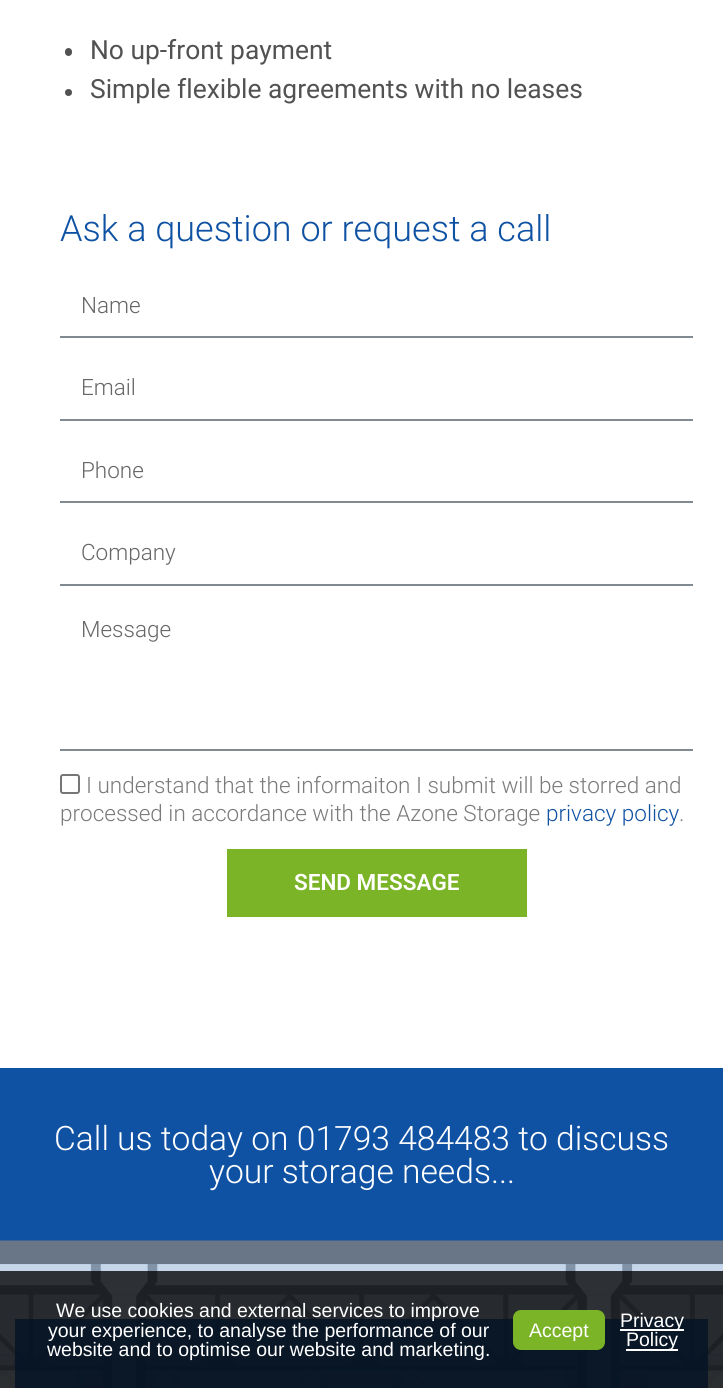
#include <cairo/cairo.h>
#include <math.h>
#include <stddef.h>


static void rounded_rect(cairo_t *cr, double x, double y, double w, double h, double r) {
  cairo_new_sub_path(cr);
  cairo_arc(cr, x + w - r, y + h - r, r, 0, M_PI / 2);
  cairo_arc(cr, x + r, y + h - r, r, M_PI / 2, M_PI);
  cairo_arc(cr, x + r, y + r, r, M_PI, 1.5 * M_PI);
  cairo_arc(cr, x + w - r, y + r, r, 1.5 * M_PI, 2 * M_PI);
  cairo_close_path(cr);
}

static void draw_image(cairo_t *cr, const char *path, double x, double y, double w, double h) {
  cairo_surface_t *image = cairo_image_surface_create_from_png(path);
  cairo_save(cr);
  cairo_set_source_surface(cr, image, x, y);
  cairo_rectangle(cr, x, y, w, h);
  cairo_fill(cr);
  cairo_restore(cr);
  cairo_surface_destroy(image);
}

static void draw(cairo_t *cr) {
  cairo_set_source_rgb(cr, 1, 1, 1);
  cairo_paint(cr);
  cairo_set_source_rgb(cr, 82 / 255.0, 82 / 255.0, 82 / 255.0);
  rounded_rect(cr, 65, 48, 7, 8, 3.5);
  cairo_fill(cr);
  cairo_arc(cr, 68.5, 92.5, 3.5, 0, 2 * M_PI);
  cairo_fill(cr);
  cairo_set_source_rgb(cr, 129 / 255.0, 138 / 255.0, 145 / 255.0);
  cairo_rectangle(cr, 60, 336, 633, 2);
  cairo_fill(cr);
  cairo_rectangle(cr, 60, 419, 633, 2);
  cairo_fill(cr);
  cairo_rectangle(cr, 60, 501, 633, 2);
  cairo_fill(cr);
  cairo_rectangle(cr, 60, 584, 633, 2);
  cairo_fill(cr);
  cairo_rectangle(cr, 60, 749, 633, 2);
  cairo_fill(cr);
  rounded_rect(cr, 61, 775, 18, 18, 2);
  cairo_set_source_rgb(cr, 118 / 255.0, 118 / 255.0, 118 / 255.0);
  cairo_stroke(cr);
  cairo_set_source_rgb(cr, 123 / 255.0, 180 / 255.0, 39 / 255.0);
  cairo_rectangle(cr, 227, 849, 300, 68);
  cairo_fill(cr);
  cairo_set_source_rgb(cr, 15 / 255.0, 82 / 255.0, 163 / 255.0);
  cairo_rectangle(cr, 0, 1068, 723, 173);
  cairo_fill(cr);
  draw_image(cr, "images/1.png", 0, 1240, 723, 148);
  cairo_set_source_rgba(cr, 15 / 255.0, 82 / 255.0, 163 / 255.0, 0.81);
  cairo_rectangle(cr, 15, 1319, 693, 69);
  cairo_fill(cr);
  cairo_set_source_rgba(cr, 0, 0, 0, 0.77);
  cairo_rectangle(cr, 0, 1271, 723, 117);
  cairo_fill(cr);
  cairo_set_source_rgb(cr, 123 / 255.0, 180 / 255.0, 39 / 255.0);
  rounded_rect(cr, 514, 1311, 90, 38, 7);
  cairo_fill_preserve(cr);
  cairo_stroke(cr);
  cairo_set_source_rgb(cr, 1, 1, 1);
  cairo_rectangle(cr, 620, 1329, 64, 2);
  cairo_fill(cr);
  cairo_rectangle(cr, 626, 1349, 52, 2);
  cairo_fill(cr);
  cairo_select_font_face(cr, "Roboto", CAIRO_FONT_SLANT_NORMAL, CAIRO_FONT_WEIGHT_NORMAL);
  cairo_set_font_size(cr, 26.4);
  cairo_set_source_rgb(cr, 82 / 255.0, 82 / 255.0, 82 / 255.0);
  cairo_move_to(cr, 90, 59);
  cairo_show_text(cr, "No up-front payment");
  cairo_move_to(cr, 90, 98);
  cairo_show_text(cr, "Simple flexible agreements with no leases");
  cairo_select_font_face(cr, "Roboto Light", CAIRO_FONT_SLANT_NORMAL, CAIRO_FONT_WEIGHT_NORMAL);
  cairo_set_font_size(cr, 36);
  cairo_set_source_rgb(cr, 15 / 255.0, 82 / 255.0, 163 / 255.0);
  cairo_move_to(cr, 60, 241);
  cairo_show_text(cr, "Ask a question or request a call");
  cairo_set_font_size(cr, 22.5);
  cairo_set_source_rgb(cr, 102 / 255.0, 102 / 255.0, 102 / 255.0);
  cairo_move_to(cr, 81, 313);
  cairo_show_text(cr, "Name");
  cairo_move_to(cr, 81, 395);
  cairo_show_text(cr, "Email");
  cairo_move_to(cr, 81, 478);
  cairo_show_text(cr, "Phone");
  cairo_move_to(cr, 81, 560);
  cairo_show_text(cr, "Company");
  cairo_move_to(cr, 81, 637);
  cairo_show_text(cr, "Message");
  cairo_set_source_rgb(cr, 122 / 255.0, 122 / 255.0, 122 / 255.0);
  cairo_move_to(cr, 86, 793);
  cairo_show_text(cr, "I understand that the informaiton I submit will be storred and");
  cairo_move_to(cr, 60, 821);
  cairo_show_text(cr, "processed in accordance with the Azone Storage");
  cairo_set_source_rgb(cr, 15 / 255.0, 82 / 255.0, 163 / 255.0);
  cairo_move_to(cr, 546, 821);
  cairo_show_text(cr, "privacy policy");
  cairo_set_source_rgb(cr, 122 / 255.0, 122 / 255.0, 122 / 255.0);
  cairo_move_to(cr, 679, 821);
  cairo_show_text(cr, ".");
  cairo_select_font_face(cr, "Roboto SemiBold", CAIRO_FONT_SLANT_NORMAL, CAIRO_FONT_WEIGHT_NORMAL);
  cairo_set_source_rgb(cr, 1, 1, 1);
  cairo_move_to(cr, 294, 890);
  cairo_show_text(cr, "SEND MESSAGE");
  cairo_select_font_face(cr, "Roboto Light", CAIRO_FONT_SLANT_NORMAL, CAIRO_FONT_WEIGHT_NORMAL);
  cairo_set_font_size(cr, 33.6);
  cairo_move_to(cr, 54, 1150);
  cairo_show_text(cr, "Call us today on 01793 484483 to discuss");
  cairo_move_to(cr, 209, 1183);
  cairo_show_text(cr, "your storage needs...");
  cairo_select_font_face(cr, "Liberation Sans", CAIRO_FONT_SLANT_NORMAL, CAIRO_FONT_WEIGHT_NORMAL);
  cairo_set_font_size(cr, 19.5);
  cairo_move_to(cr, 56, 1317);
  cairo_show_text(cr, "We use cookies and external services to improve");
  cairo_move_to(cr, 48, 1337);
  cairo_show_text(cr, "your experience, to analyse the performance of our");
  cairo_move_to(cr, 47, 1356);
  cairo_show_text(cr, "website and to optimise our website and marketing.");
  cairo_move_to(cr, 529, 1337);
  cairo_show_text(cr, "Accept");
  cairo_move_to(cr, 620, 1327);
  cairo_show_text(cr, "Privacy");
  cairo_move_to(cr, 626, 1346);
  cairo_show_text(cr, "Policy");
}

int main(void) {
  cairo_surface_t *surface = cairo_image_surface_create(CAIRO_FORMAT_RGB24, 723, 1388);
  cairo_t *cr = cairo_create(surface);
  cairo_font_options_t *options = cairo_font_options_create();
  cairo_font_options_set_hint_metrics(options, CAIRO_HINT_METRICS_OFF);
  cairo_font_options_set_hint_style(options, CAIRO_HINT_STYLE_NONE);
  cairo_set_font_options(cr, options);
  cairo_set_miter_limit(cr, 4);
  draw(cr);
  cairo_surface_write_to_png(surface, "out.png");
  cairo_font_options_destroy(options);
  cairo_destroy(cr);
  cairo_surface_destroy(surface);
  return 0;
}
